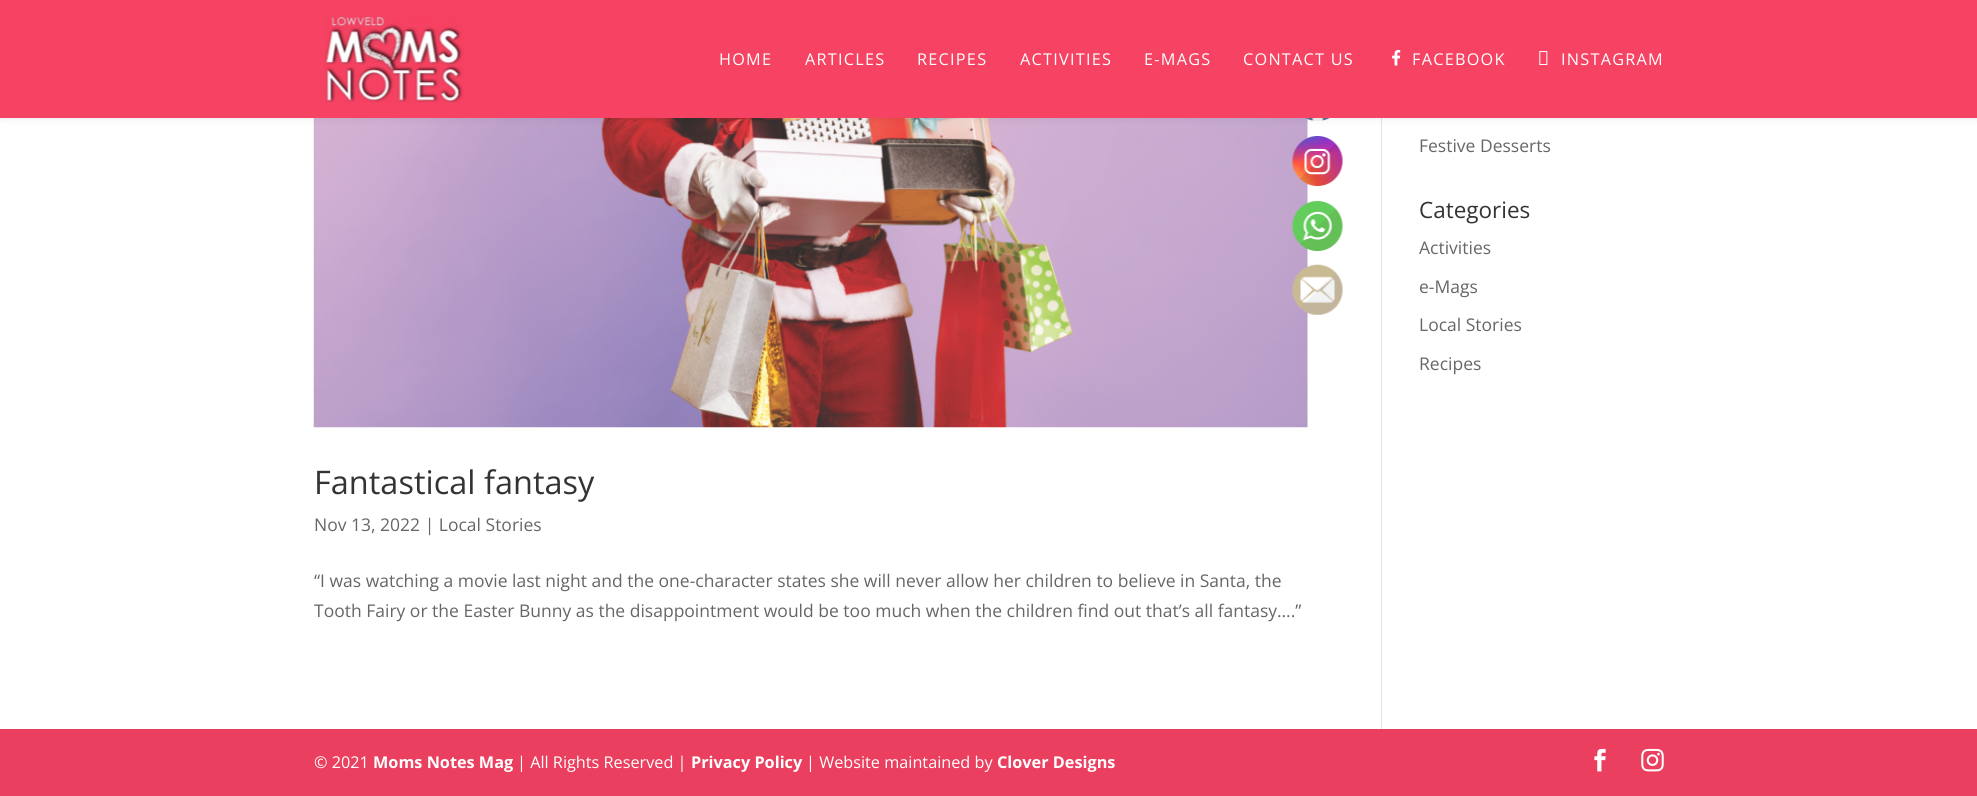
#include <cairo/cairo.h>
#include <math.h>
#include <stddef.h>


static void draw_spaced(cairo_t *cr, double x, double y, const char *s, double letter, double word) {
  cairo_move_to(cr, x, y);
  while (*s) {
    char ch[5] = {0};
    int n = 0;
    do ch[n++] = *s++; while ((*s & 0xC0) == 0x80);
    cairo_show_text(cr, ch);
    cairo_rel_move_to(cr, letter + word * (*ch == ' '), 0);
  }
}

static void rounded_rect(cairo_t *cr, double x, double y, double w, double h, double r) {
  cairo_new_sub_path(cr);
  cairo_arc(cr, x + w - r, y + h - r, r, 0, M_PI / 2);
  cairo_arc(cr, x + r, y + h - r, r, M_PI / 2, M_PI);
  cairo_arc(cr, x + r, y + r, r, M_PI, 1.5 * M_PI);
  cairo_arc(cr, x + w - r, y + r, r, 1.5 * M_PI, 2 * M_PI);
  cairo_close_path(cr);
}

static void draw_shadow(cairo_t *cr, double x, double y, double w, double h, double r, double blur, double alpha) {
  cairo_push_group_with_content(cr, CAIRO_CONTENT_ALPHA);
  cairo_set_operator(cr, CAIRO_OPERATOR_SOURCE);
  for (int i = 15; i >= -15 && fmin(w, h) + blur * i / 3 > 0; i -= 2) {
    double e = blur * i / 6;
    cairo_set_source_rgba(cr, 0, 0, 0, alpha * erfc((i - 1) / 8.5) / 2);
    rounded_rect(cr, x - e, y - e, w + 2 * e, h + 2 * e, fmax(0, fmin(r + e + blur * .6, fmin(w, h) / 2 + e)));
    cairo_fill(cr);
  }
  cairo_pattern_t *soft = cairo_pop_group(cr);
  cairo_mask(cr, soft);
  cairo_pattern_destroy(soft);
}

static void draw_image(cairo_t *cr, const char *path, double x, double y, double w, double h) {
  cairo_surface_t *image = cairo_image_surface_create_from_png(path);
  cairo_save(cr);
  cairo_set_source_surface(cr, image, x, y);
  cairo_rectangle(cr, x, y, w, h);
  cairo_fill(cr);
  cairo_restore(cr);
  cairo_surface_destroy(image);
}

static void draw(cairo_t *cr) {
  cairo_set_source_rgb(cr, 1, 1, 1);
  cairo_paint(cr);
  cairo_set_source_rgb(cr, 226 / 255.0, 226 / 255.0, 226 / 255.0);
  cairo_rectangle(cr, 1381, 118, 1, 611);
  cairo_fill(cr);
  draw_image(cr, "images/4.png", 313, 118, 995, 310);
  draw_image(cr, "images/7.png", 1305, 118, 25, 3);
  cairo_set_source_rgb(cr, 0, 0, 0);
  draw_shadow(cr, 0, 0, 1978, 118, 0, 4.5, 0.1);
  cairo_set_source_rgb(cr, 246 / 255.0, 67 / 255.0, 99 / 255.0);
  cairo_rectangle(cr, 0, 0, 1977, 118);
  cairo_fill(cr);
  draw_image(cr, "images/1.png", 324, 16, 140, 87);
  draw_image(cr, "images/2.png", 1392, 49, 9, 17);
  draw_image(cr, "images/3.png", 1539, 51, 9, 14);
  cairo_set_source_rgb(cr, 234 / 255.0, 63 / 255.0, 94 / 255.0);
  cairo_rectangle(cr, 0, 729, 1977, 67);
  cairo_fill(cr);
  draw_image(cr, "images/5.png", 1594, 748, 12, 24);
  draw_image(cr, "images/6.png", 1641, 748, 23, 24);
  draw_image(cr, "images/8.png", 1292, 136, 51, 50);
  draw_image(cr, "images/9.png", 1292, 201, 51, 50);
  draw_image(cr, "images/10.png", 1292, 264, 51, 51);
  cairo_select_font_face(cr, "Open Sans", CAIRO_FONT_SLANT_NORMAL, CAIRO_FONT_WEIGHT_NORMAL);
  cairo_set_font_size(cr, 16.25);
  cairo_set_source_rgb(cr, 1, 1, 1);
  draw_spaced(cr, 719, 65, "HOME", 1.25, 0);
  draw_spaced(cr, 805, 65, "ARTICLES", 1.25, 0);
  draw_spaced(cr, 917, 65, "RECIPES", 1.25, 0);
  draw_spaced(cr, 1020, 65, "ACTIVITIES", 1.25, 0);
  draw_spaced(cr, 1144, 65, "E-MAGS", 1.25, 0);
  draw_spaced(cr, 1243, 65, "CONTACT US", 1.25, 0);
  draw_spaced(cr, 1412, 65, "FACEBOOK", 1.25, 0);
  draw_spaced(cr, 1561, 65, "INSTAGRAM", 1.25, 0);
  cairo_set_font_size(cr, 17.5);
  cairo_set_source_rgb(cr, 102 / 255.0, 102 / 255.0, 102 / 255.0);
  cairo_move_to(cr, 1419, 152);
  cairo_show_text(cr, "Festive Desserts");
  cairo_set_font_size(cr, 22.5);
  cairo_set_source_rgb(cr, 51 / 255.0, 51 / 255.0, 51 / 255.0);
  cairo_move_to(cr, 1419, 218);
  cairo_show_text(cr, "Categories");
  cairo_set_font_size(cr, 17.5);
  cairo_set_source_rgb(cr, 102 / 255.0, 102 / 255.0, 102 / 255.0);
  cairo_move_to(cr, 1419, 254);
  cairo_show_text(cr, "Activities");
  cairo_move_to(cr, 1419, 293);
  cairo_show_text(cr, "e-Mags");
  cairo_move_to(cr, 1419, 331);
  cairo_show_text(cr, "Local Stories");
  cairo_move_to(cr, 1419, 370);
  cairo_show_text(cr, "Recipes");
  cairo_set_font_size(cr, 32.5);
  cairo_set_source_rgb(cr, 51 / 255.0, 51 / 255.0, 51 / 255.0);
  cairo_move_to(cr, 314, 494);
  cairo_show_text(cr, "Fantastical fantasy");
  cairo_set_font_size(cr, 17.5);
  cairo_set_source_rgb(cr, 102 / 255.0, 102 / 255.0, 102 / 255.0);
  cairo_move_to(cr, 314, 531);
  cairo_show_text(cr, "Nov 13, 2022 | Local Stories");
  cairo_move_to(cr, 314, 587);
  cairo_show_text(cr, "“I was watching a movie last night and the one-character states she will never allow her children to believe in Santa, the");
  cairo_move_to(cr, 314, 617);
  cairo_show_text(cr, "Tooth Fairy or the Easter Bunny as the disappointment would be too much when the children find out that’s all fantasy….”");
  cairo_set_font_size(cr, 16.25);
  cairo_set_source_rgb(cr, 1, 1, 1);
  cairo_move_to(cr, 314, 768);
  cairo_show_text(cr, "© 2021");
  cairo_select_font_face(cr, "Open Sans", CAIRO_FONT_SLANT_NORMAL, CAIRO_FONT_WEIGHT_BOLD);
  cairo_move_to(cr, 373, 768);
  cairo_show_text(cr, "Moms Notes Mag");
  cairo_select_font_face(cr, "Open Sans", CAIRO_FONT_SLANT_NORMAL, CAIRO_FONT_WEIGHT_NORMAL);
  cairo_move_to(cr, 517, 768);
  cairo_show_text(cr, "| All Rights Reserved |");
  cairo_select_font_face(cr, "Open Sans", CAIRO_FONT_SLANT_NORMAL, CAIRO_FONT_WEIGHT_BOLD);
  cairo_move_to(cr, 691, 768);
  cairo_show_text(cr, "Privacy Policy");
  cairo_select_font_face(cr, "Open Sans", CAIRO_FONT_SLANT_NORMAL, CAIRO_FONT_WEIGHT_NORMAL);
  cairo_move_to(cr, 806, 768);
  cairo_show_text(cr, "| Website maintained by");
  cairo_select_font_face(cr, "Open Sans", CAIRO_FONT_SLANT_NORMAL, CAIRO_FONT_WEIGHT_BOLD);
  cairo_move_to(cr, 997, 768);
  cairo_show_text(cr, "Clover Designs");
}

int main(void) {
  cairo_surface_t *surface = cairo_image_surface_create(CAIRO_FORMAT_RGB24, 1977, 796);
  cairo_t *cr = cairo_create(surface);
  cairo_font_options_t *options = cairo_font_options_create();
  cairo_font_options_set_hint_metrics(options, CAIRO_HINT_METRICS_OFF);
  cairo_font_options_set_hint_style(options, CAIRO_HINT_STYLE_NONE);
  cairo_set_font_options(cr, options);
  cairo_set_miter_limit(cr, 4);
  draw(cr);
  cairo_surface_write_to_png(surface, "out.png");
  cairo_font_options_destroy(options);
  cairo_destroy(cr);
  cairo_surface_destroy(surface);
  return 0;
}
